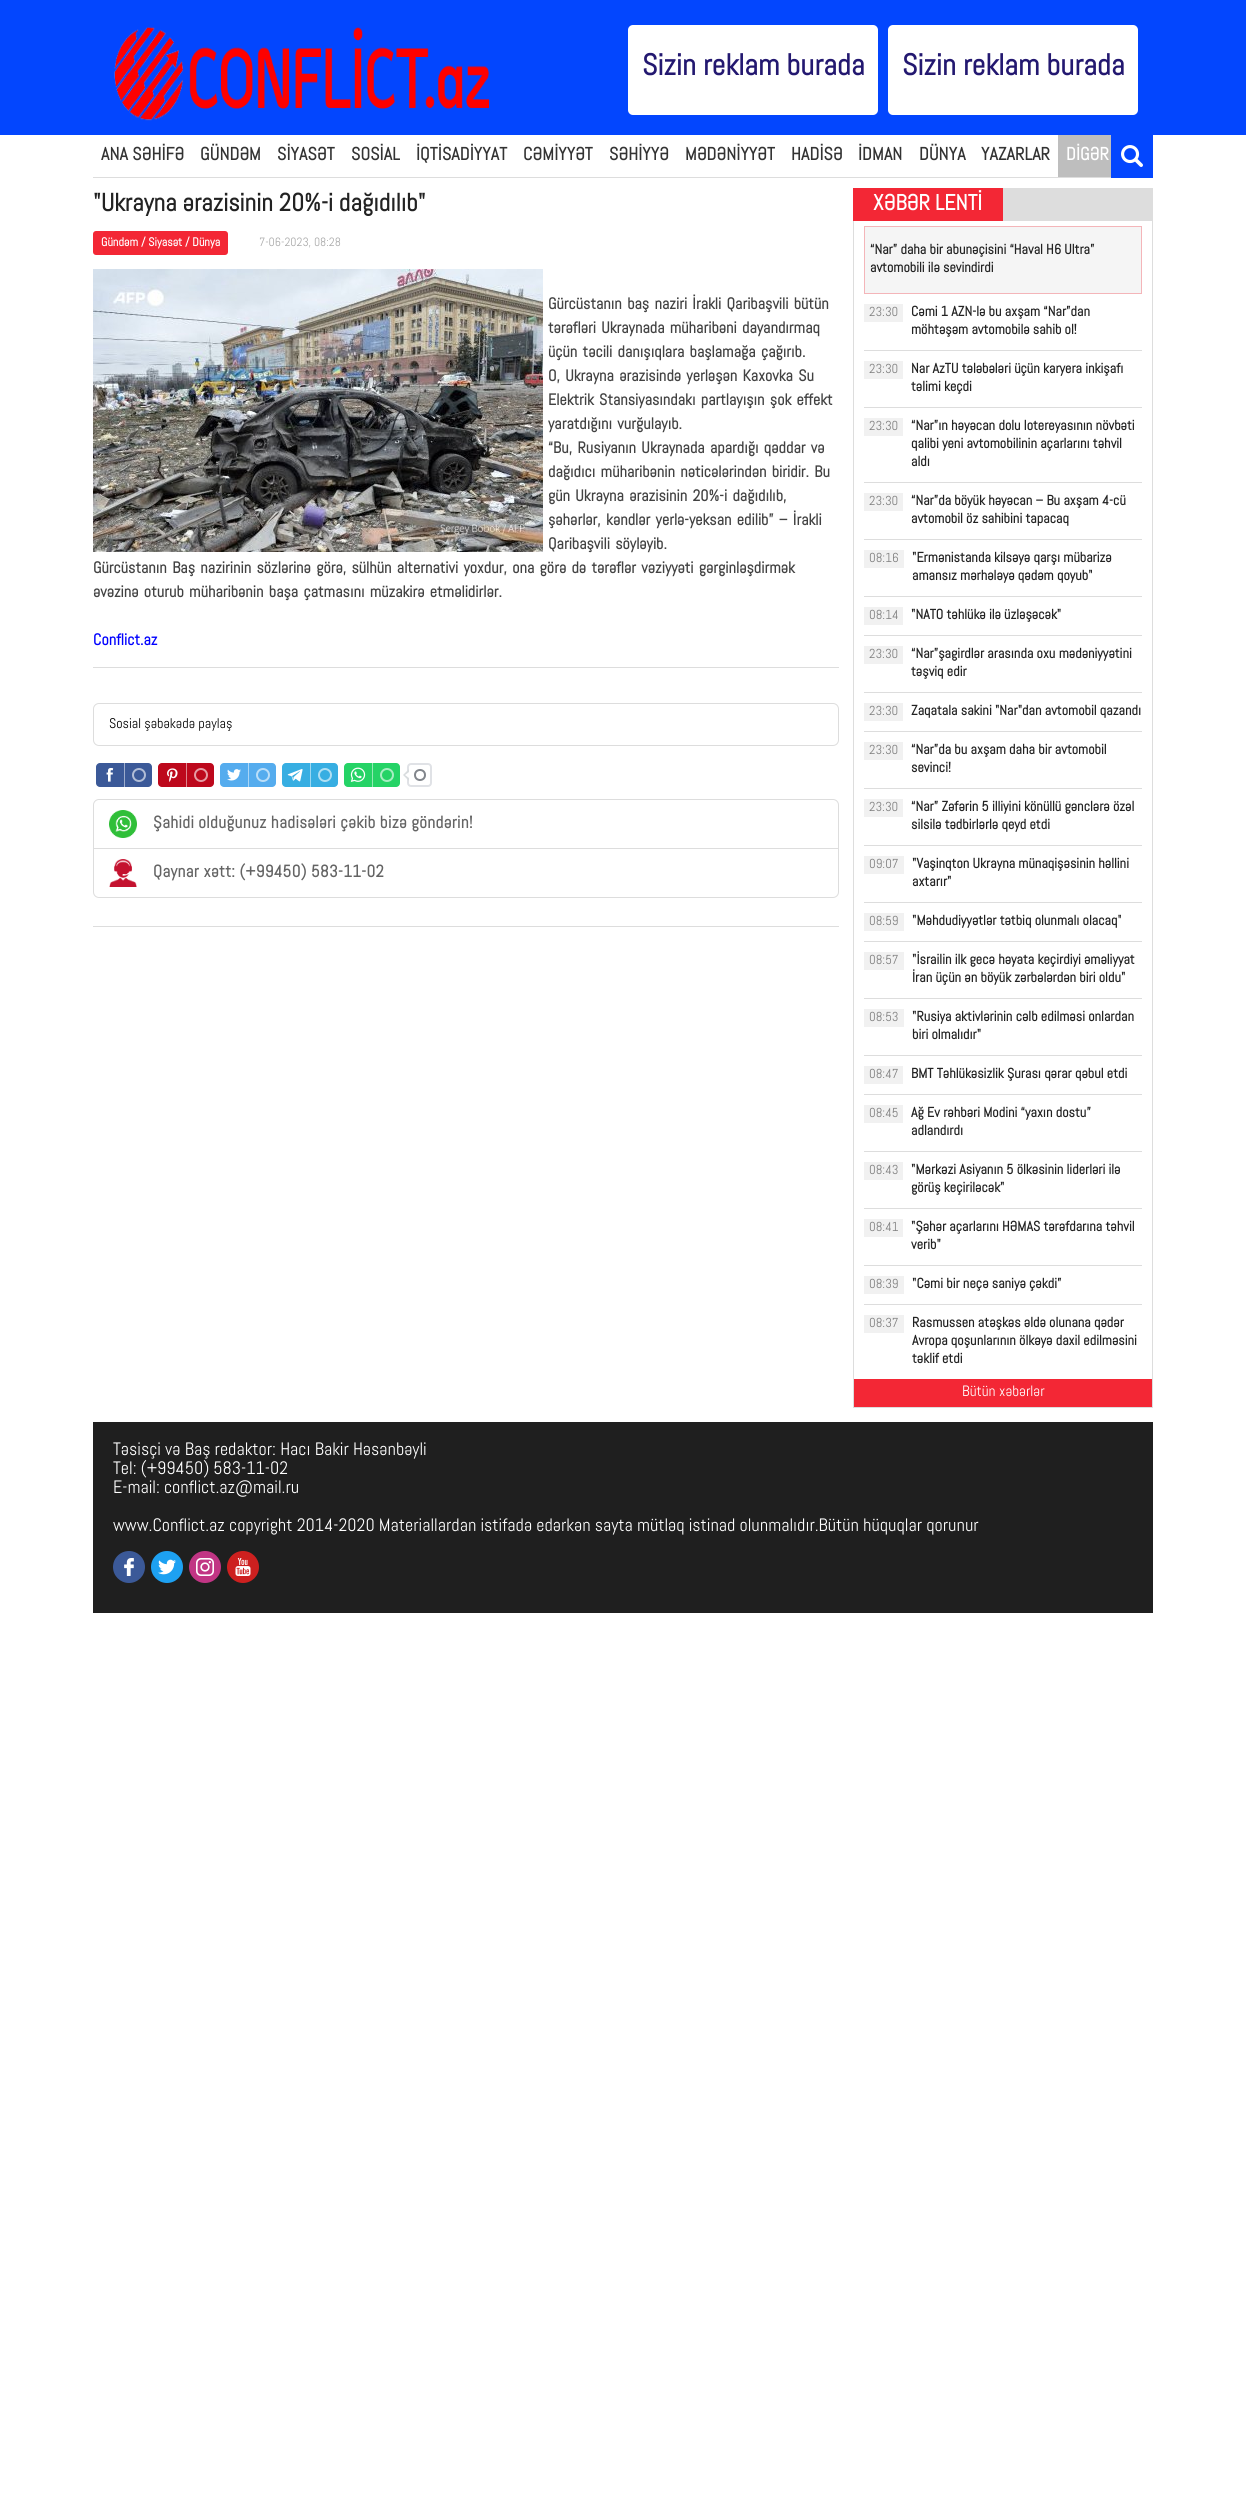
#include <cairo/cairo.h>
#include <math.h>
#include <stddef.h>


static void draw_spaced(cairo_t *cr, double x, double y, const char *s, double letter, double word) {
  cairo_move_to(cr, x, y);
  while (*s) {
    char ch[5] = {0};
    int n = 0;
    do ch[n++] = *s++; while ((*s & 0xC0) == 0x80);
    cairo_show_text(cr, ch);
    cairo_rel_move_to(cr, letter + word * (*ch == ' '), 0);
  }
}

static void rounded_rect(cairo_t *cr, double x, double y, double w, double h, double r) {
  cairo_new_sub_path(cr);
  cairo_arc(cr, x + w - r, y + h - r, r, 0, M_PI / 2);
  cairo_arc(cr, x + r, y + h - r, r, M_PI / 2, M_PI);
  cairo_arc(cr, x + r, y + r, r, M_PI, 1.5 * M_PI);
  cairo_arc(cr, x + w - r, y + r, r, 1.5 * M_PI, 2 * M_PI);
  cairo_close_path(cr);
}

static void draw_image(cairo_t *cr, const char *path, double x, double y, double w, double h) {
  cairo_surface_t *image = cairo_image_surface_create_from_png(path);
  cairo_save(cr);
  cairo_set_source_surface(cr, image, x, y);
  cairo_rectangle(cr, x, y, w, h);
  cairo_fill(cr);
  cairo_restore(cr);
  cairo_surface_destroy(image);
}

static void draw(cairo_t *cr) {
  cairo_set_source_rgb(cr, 1, 1, 1);
  cairo_paint(cr);
  cairo_set_source_rgb(cr, 3 / 255.0, 70 / 255.0, 254 / 255.0);
  cairo_rectangle(cr, 0, 0, 1246, 135);
  cairo_fill(cr);
  draw_image(cr, "images/1.png", 114, 27, 375, 94);
  cairo_set_source_rgb(cr, 1, 1, 1);
  rounded_rect(cr, 628, 25, 250, 90, 5);
  cairo_fill(cr);
  rounded_rect(cr, 888, 25, 250, 90, 5);
  cairo_fill(cr);
  cairo_set_source_rgb(cr, 221 / 255.0, 221 / 255.0, 221 / 255.0);
  cairo_rectangle(cr, 93, 177, 1018, 1);
  cairo_fill(cr);
  cairo_set_source_rgb(cr, 190 / 255.0, 190 / 255.0, 190 / 255.0);
  cairo_rectangle(cr, 1058, 135, 53, 42);
  cairo_fill(cr);
  cairo_set_source_rgb(cr, 3 / 255.0, 70 / 255.0, 254 / 255.0);
  cairo_rectangle(cr, 1111, 135, 42, 43);
  cairo_fill(cr);
  draw_image(cr, "images/2.png", 1121, 145, 22, 22);
  cairo_set_source_rgb(cr, 221 / 255.0, 221 / 255.0, 221 / 255.0);
  cairo_rectangle(cr, 93, 926, 746, 1);
  cairo_fill(cr);
  cairo_set_source_rgb(cr, 243 / 255.0, 39 / 255.0, 53 / 255.0);
  rounded_rect(cr, 93, 231, 135, 24, 3);
  cairo_fill(cr);
  cairo_set_source_rgb(cr, 221 / 255.0, 221 / 255.0, 221 / 255.0);
  cairo_rectangle(cr, 93, 667, 746, 1);
  cairo_fill(cr);
  draw_image(cr, "images/3.png", 93, 269, 450, 283);
  rounded_rect(cr, 93.5, 703.5, 745, 42, 5.5);
  cairo_set_line_width(cr, 1);
  cairo_stroke(cr);
  cairo_set_source_rgb(cr, 59 / 255.0, 89 / 255.0, 152 / 255.0);
  rounded_rect(cr, 96, 763, 56, 24, 4);
  cairo_fill(cr);
  draw_image(cr, "images/4.png", 106, 768, 8, 14);
  cairo_set_source_rgb(cr, 157 / 255.0, 172 / 255.0, 204 / 255.0);
  cairo_rectangle(cr, 124, 763, 1, 24);
  cairo_fill(cr);
  cairo_arc(cr, 139, 775, 6, 0, 2 * M_PI);
  cairo_set_source_rgb(cr, 177 / 255.0, 189 / 255.0, 214 / 255.0);
  cairo_set_line_width(cr, 2);
  cairo_stroke(cr);
  cairo_set_source_rgb(cr, 189 / 255.0, 8 / 255.0, 28 / 255.0);
  rounded_rect(cr, 158, 763, 56, 24, 4);
  cairo_fill(cr);
  draw_image(cr, "images/5.png", 167, 768, 11, 14);
  cairo_set_source_rgb(cr, 222 / 255.0, 132 / 255.0, 142 / 255.0);
  cairo_rectangle(cr, 186, 763, 1, 24);
  cairo_fill(cr);
  cairo_arc(cr, 201, 775, 6, 0, 2 * M_PI);
  cairo_set_source_rgb(cr, 229 / 255.0, 156 / 255.0, 164 / 255.0);
  cairo_stroke(cr);
  cairo_set_source_rgb(cr, 85 / 255.0, 172 / 255.0, 238 / 255.0);
  rounded_rect(cr, 220, 763, 56, 24, 4);
  cairo_fill(cr);
  draw_image(cr, "images/6.png", 227, 769, 14, 12);
  cairo_set_source_rgb(cr, 170 / 255.0, 214 / 255.0, 247 / 255.0);
  cairo_rectangle(cr, 248, 763, 1, 24);
  cairo_fill(cr);
  cairo_arc(cr, 263, 775, 6, 0, 2 * M_PI);
  cairo_set_source_rgb(cr, 187 / 255.0, 222 / 255.0, 248 / 255.0);
  cairo_stroke(cr);
  cairo_set_source_rgb(cr, 55 / 255.0, 174 / 255.0, 226 / 255.0);
  rounded_rect(cr, 282, 763, 56, 24, 4);
  cairo_fill(cr);
  draw_image(cr, "images/7.png", 287, 769, 16, 13);
  cairo_set_source_rgb(cr, 155 / 255.0, 215 / 255.0, 241 / 255.0);
  cairo_rectangle(cr, 310, 763, 1, 24);
  cairo_fill(cr);
  cairo_arc(cr, 325, 775, 6, 0, 2 * M_PI);
  cairo_set_source_rgb(cr, 175 / 255.0, 223 / 255.0, 243 / 255.0);
  cairo_stroke(cr);
  cairo_set_source_rgb(cr, 37 / 255.0, 211 / 255.0, 102 / 255.0);
  rounded_rect(cr, 344, 763, 56, 24, 4);
  cairo_fill(cr);
  draw_image(cr, "images/8.png", 350, 767, 16, 15);
  cairo_set_source_rgb(cr, 146 / 255.0, 233 / 255.0, 179 / 255.0);
  cairo_rectangle(cr, 372, 763, 1, 24);
  cairo_fill(cr);
  cairo_arc(cr, 387, 775, 6, 0, 2 * M_PI);
  cairo_set_source_rgb(cr, 168 / 255.0, 237 / 255.0, 194 / 255.0);
  cairo_stroke(cr);
  rounded_rect(cr, 408, 764, 23, 22, 3);
  cairo_set_source_rgb(cr, 224 / 255.0, 226 / 255.0, 230 / 255.0);
  cairo_stroke(cr);
  cairo_set_source_rgb(cr, 216 / 255.0, 220 / 255.0, 222 / 255.0);
  cairo_new_path(cr);
  cairo_move_to(cr, 409, 769);
  cairo_line_to(cr, 409, 781);
  cairo_line_to(cr, 403, 775);
  cairo_close_path(cr);
  cairo_fill(cr);
  cairo_arc(cr, 420, 775, 5, 0, 2 * M_PI);
  cairo_set_source_rgb(cr, 129 / 255.0, 133 / 255.0, 139 / 255.0);
  cairo_stroke(cr);
  cairo_set_source_rgb(cr, 1, 1, 1);
  cairo_new_path(cr);
  cairo_move_to(cr, 409, 772);
  cairo_line_to(cr, 409, 778);
  cairo_line_to(cr, 405, 775);
  cairo_close_path(cr);
  cairo_fill(cr);
  rounded_rect(cr, 93.5, 799.5, 745, 98, 5.5);
  cairo_set_source_rgb(cr, 221 / 255.0, 221 / 255.0, 221 / 255.0);
  cairo_set_line_width(cr, 1);
  cairo_stroke(cr);
  cairo_rectangle(cr, 94, 848, 744, 1);
  cairo_fill(cr);
  draw_image(cr, "images/9.png", 109, 810, 28, 28);
  draw_image(cr, "images/10.png", 109, 859, 28, 28);
  cairo_rectangle(cr, 1003, 188, 150, 33);
  cairo_fill(cr);
  cairo_set_source_rgb(cr, 243 / 255.0, 39 / 255.0, 53 / 255.0);
  cairo_rectangle(cr, 853, 188, 150, 33);
  cairo_fill(cr);
  cairo_set_source_rgb(cr, 221 / 255.0, 221 / 255.0, 221 / 255.0);
  cairo_rectangle(cr, 1152, 221, 1, 1187);
  cairo_fill(cr);
  cairo_rectangle(cr, 853, 1407, 300, 1);
  cairo_fill(cr);
  cairo_rectangle(cr, 853, 221, 1, 1187);
  cairo_fill(cr);
  cairo_set_source_rgb(cr, 245 / 255.0, 245 / 255.0, 245 / 255.0);
  cairo_rectangle(cr, 864.5, 226.5, 277, 67);
  cairo_fill_preserve(cr);
  cairo_set_source_rgb(cr, 244 / 255.0, 181 / 255.0, 185 / 255.0);
  cairo_stroke(cr);
  cairo_set_source_rgb(cr, 221 / 255.0, 221 / 255.0, 221 / 255.0);
  cairo_rectangle(cr, 864, 350, 278, 1);
  cairo_fill(cr);
  cairo_set_source_rgb(cr, 241 / 255.0, 241 / 255.0, 241 / 255.0);
  cairo_rectangle(cr, 864, 304, 39, 18);
  cairo_fill(cr);
  cairo_set_source_rgb(cr, 221 / 255.0, 221 / 255.0, 221 / 255.0);
  cairo_rectangle(cr, 864, 407, 278, 1);
  cairo_fill(cr);
  cairo_set_source_rgb(cr, 241 / 255.0, 241 / 255.0, 241 / 255.0);
  cairo_rectangle(cr, 864, 361, 39, 18);
  cairo_fill(cr);
  cairo_set_source_rgb(cr, 221 / 255.0, 221 / 255.0, 221 / 255.0);
  cairo_rectangle(cr, 864, 482, 278, 1);
  cairo_fill(cr);
  cairo_set_source_rgb(cr, 241 / 255.0, 241 / 255.0, 241 / 255.0);
  cairo_rectangle(cr, 864, 418, 39, 18);
  cairo_fill(cr);
  cairo_set_source_rgb(cr, 221 / 255.0, 221 / 255.0, 221 / 255.0);
  cairo_rectangle(cr, 864, 539, 278, 1);
  cairo_fill(cr);
  cairo_set_source_rgb(cr, 241 / 255.0, 241 / 255.0, 241 / 255.0);
  cairo_rectangle(cr, 864, 493, 39, 18);
  cairo_fill(cr);
  cairo_set_source_rgb(cr, 221 / 255.0, 221 / 255.0, 221 / 255.0);
  cairo_rectangle(cr, 864, 596, 278, 1);
  cairo_fill(cr);
  cairo_set_source_rgb(cr, 241 / 255.0, 241 / 255.0, 241 / 255.0);
  cairo_rectangle(cr, 864, 550, 40, 18);
  cairo_fill(cr);
  cairo_set_source_rgb(cr, 221 / 255.0, 221 / 255.0, 221 / 255.0);
  cairo_rectangle(cr, 864, 635, 278, 1);
  cairo_fill(cr);
  cairo_set_source_rgb(cr, 241 / 255.0, 241 / 255.0, 241 / 255.0);
  cairo_rectangle(cr, 864, 607, 39, 18);
  cairo_fill(cr);
  cairo_set_source_rgb(cr, 221 / 255.0, 221 / 255.0, 221 / 255.0);
  cairo_rectangle(cr, 864, 692, 278, 1);
  cairo_fill(cr);
  cairo_set_source_rgb(cr, 241 / 255.0, 241 / 255.0, 241 / 255.0);
  cairo_rectangle(cr, 864, 646, 39, 18);
  cairo_fill(cr);
  cairo_set_source_rgb(cr, 221 / 255.0, 221 / 255.0, 221 / 255.0);
  cairo_rectangle(cr, 864, 731, 278, 1);
  cairo_fill(cr);
  cairo_set_source_rgb(cr, 241 / 255.0, 241 / 255.0, 241 / 255.0);
  cairo_rectangle(cr, 864, 703, 39, 18);
  cairo_fill(cr);
  cairo_set_source_rgb(cr, 221 / 255.0, 221 / 255.0, 221 / 255.0);
  cairo_rectangle(cr, 864, 788, 278, 1);
  cairo_fill(cr);
  cairo_set_source_rgb(cr, 241 / 255.0, 241 / 255.0, 241 / 255.0);
  cairo_rectangle(cr, 864, 742, 39, 18);
  cairo_fill(cr);
  cairo_set_source_rgb(cr, 221 / 255.0, 221 / 255.0, 221 / 255.0);
  cairo_rectangle(cr, 864, 845, 278, 1);
  cairo_fill(cr);
  cairo_set_source_rgb(cr, 241 / 255.0, 241 / 255.0, 241 / 255.0);
  cairo_rectangle(cr, 864, 799, 39, 18);
  cairo_fill(cr);
  cairo_set_source_rgb(cr, 221 / 255.0, 221 / 255.0, 221 / 255.0);
  cairo_rectangle(cr, 864, 902, 278, 1);
  cairo_fill(cr);
  cairo_set_source_rgb(cr, 241 / 255.0, 241 / 255.0, 241 / 255.0);
  cairo_rectangle(cr, 864, 856, 40, 18);
  cairo_fill(cr);
  cairo_set_source_rgb(cr, 221 / 255.0, 221 / 255.0, 221 / 255.0);
  cairo_rectangle(cr, 864, 941, 278, 1);
  cairo_fill(cr);
  cairo_set_source_rgb(cr, 241 / 255.0, 241 / 255.0, 241 / 255.0);
  cairo_rectangle(cr, 864, 913, 40, 18);
  cairo_fill(cr);
  cairo_set_source_rgb(cr, 221 / 255.0, 221 / 255.0, 221 / 255.0);
  cairo_rectangle(cr, 864, 998, 278, 1);
  cairo_fill(cr);
  cairo_set_source_rgb(cr, 241 / 255.0, 241 / 255.0, 241 / 255.0);
  cairo_rectangle(cr, 864, 952, 40, 18);
  cairo_fill(cr);
  cairo_set_source_rgb(cr, 221 / 255.0, 221 / 255.0, 221 / 255.0);
  cairo_rectangle(cr, 864, 1055, 278, 1);
  cairo_fill(cr);
  cairo_set_source_rgb(cr, 241 / 255.0, 241 / 255.0, 241 / 255.0);
  cairo_rectangle(cr, 864, 1009, 40, 18);
  cairo_fill(cr);
  cairo_set_source_rgb(cr, 221 / 255.0, 221 / 255.0, 221 / 255.0);
  cairo_rectangle(cr, 864, 1094, 278, 1);
  cairo_fill(cr);
  cairo_set_source_rgb(cr, 241 / 255.0, 241 / 255.0, 241 / 255.0);
  cairo_rectangle(cr, 864, 1066, 39, 18);
  cairo_fill(cr);
  cairo_set_source_rgb(cr, 221 / 255.0, 221 / 255.0, 221 / 255.0);
  cairo_rectangle(cr, 864, 1151, 278, 1);
  cairo_fill(cr);
  cairo_set_source_rgb(cr, 241 / 255.0, 241 / 255.0, 241 / 255.0);
  cairo_rectangle(cr, 864, 1105, 39, 18);
  cairo_fill(cr);
  cairo_set_source_rgb(cr, 221 / 255.0, 221 / 255.0, 221 / 255.0);
  cairo_rectangle(cr, 864, 1208, 278, 1);
  cairo_fill(cr);
  cairo_set_source_rgb(cr, 241 / 255.0, 241 / 255.0, 241 / 255.0);
  cairo_rectangle(cr, 864, 1162, 39, 18);
  cairo_fill(cr);
  cairo_set_source_rgb(cr, 221 / 255.0, 221 / 255.0, 221 / 255.0);
  cairo_rectangle(cr, 864, 1265, 278, 1);
  cairo_fill(cr);
  cairo_set_source_rgb(cr, 241 / 255.0, 241 / 255.0, 241 / 255.0);
  cairo_rectangle(cr, 864, 1219, 39, 18);
  cairo_fill(cr);
  cairo_set_source_rgb(cr, 221 / 255.0, 221 / 255.0, 221 / 255.0);
  cairo_rectangle(cr, 864, 1304, 278, 1);
  cairo_fill(cr);
  cairo_set_source_rgb(cr, 241 / 255.0, 241 / 255.0, 241 / 255.0);
  cairo_rectangle(cr, 864, 1276, 40, 18);
  cairo_fill(cr);
  cairo_rectangle(cr, 864, 1315, 40, 18);
  cairo_fill(cr);
  cairo_set_source_rgb(cr, 243 / 255.0, 39 / 255.0, 53 / 255.0);
  cairo_rectangle(cr, 854, 1379, 298, 28);
  cairo_fill(cr);
  cairo_set_source_rgb(cr, 31 / 255.0, 31 / 255.0, 31 / 255.0);
  cairo_rectangle(cr, 93, 1422, 1060, 191);
  cairo_fill(cr);
  cairo_set_source_rgb(cr, 59 / 255.0, 89 / 255.0, 152 / 255.0);
  cairo_arc(cr, 129, 1567, 16, 0, 2 * M_PI);
  cairo_fill(cr);
  draw_image(cr, "images/11.png", 124, 1558, 10, 18);
  cairo_set_source_rgb(cr, 29 / 255.0, 161 / 255.0, 242 / 255.0);
  cairo_arc(cr, 167, 1567, 16, 0, 2 * M_PI);
  cairo_fill(cr);
  draw_image(cr, "images/12.png", 158, 1559, 18, 16);
  cairo_set_source_rgb(cr, 193 / 255.0, 53 / 255.0, 132 / 255.0);
  cairo_arc(cr, 205, 1567, 16, 0, 2 * M_PI);
  cairo_fill(cr);
  draw_image(cr, "images/13.png", 196, 1558, 18, 18);
  cairo_set_source_rgb(cr, 205 / 255.0, 32 / 255.0, 31 / 255.0);
  cairo_arc(cr, 243, 1567, 16, 0, 2 * M_PI);
  cairo_fill(cr);
  draw_image(cr, "images/14.png", 235, 1558, 16, 18);
  cairo_select_font_face(cr, "Abel", CAIRO_FONT_SLANT_NORMAL, CAIRO_FONT_WEIGHT_BOLD);
  cairo_set_font_size(cr, 30);
  cairo_set_source_rgb(cr, 35 / 255.0, 24 / 255.0, 112 / 255.0);
  cairo_move_to(cr, 642, 75);
  cairo_show_text(cr, "Sizin reklam burada");
  cairo_move_to(cr, 902, 75);
  cairo_show_text(cr, "Sizin reklam burada");
  cairo_set_font_size(cr, 18);
  cairo_set_source_rgb(cr, 51 / 255.0, 51 / 255.0, 51 / 255.0);
  draw_spaced(cr, 101, 160, "ANA SƏHİFƏ", 0.1, 0);
  draw_spaced(cr, 200, 160, "GÜNDƏM", 0.1, 0);
  draw_spaced(cr, 277, 160, "SİYASƏT", 0.1, 0);
  draw_spaced(cr, 351, 160, "SOSİAL", 0.1, 0);
  draw_spaced(cr, 416, 160, "İQTİSADİYYAT", 0.1, 0);
  draw_spaced(cr, 523, 160, "CƏMİYYƏT", 0.1, 0);
  draw_spaced(cr, 609, 160, "SƏHİYYƏ", 0.1, 0);
  draw_spaced(cr, 685, 160, "MƏDƏNİYYƏT", 0.1, 0);
  draw_spaced(cr, 791, 160, "HADİSƏ", 0.1, 0);
  draw_spaced(cr, 858, 160, "İDMAN", 0.1, 0);
  draw_spaced(cr, 919, 160, "DÜNYA", 0.1, 0);
  draw_spaced(cr, 981, 160, "YAZARLAR", 0.1, 0);
  cairo_set_source_rgb(cr, 1, 1, 1);
  draw_spaced(cr, 1066, 160, "DİGƏR", 0.1, 0);
  cairo_set_font_size(cr, 25);
  cairo_set_source_rgb(cr, 34 / 255.0, 34 / 255.0, 34 / 255.0);
  cairo_move_to(cr, 93, 211);
  cairo_show_text(cr, "\"Ukrayna ərazisinin 20%-i dağıdılıb\"");
  cairo_set_font_size(cr, 12);
  cairo_set_source_rgb(cr, 1, 1, 1);
  cairo_move_to(cr, 101, 246);
  cairo_show_text(cr, "Gündəm / Siyasət / Dünya");
  cairo_select_font_face(cr, "Abel", CAIRO_FONT_SLANT_NORMAL, CAIRO_FONT_WEIGHT_NORMAL);
  cairo_set_source_rgb(cr, 169 / 255.0, 169 / 255.0, 169 / 255.0);
  cairo_move_to(cr, 259, 246);
  cairo_show_text(cr, "7-06-2023, 08:28");
  cairo_select_font_face(cr, "Abel", CAIRO_FONT_SLANT_NORMAL, CAIRO_FONT_WEIGHT_BOLD);
  cairo_set_font_size(cr, 16);
  cairo_set_source_rgb(cr, 66 / 255.0, 66 / 255.0, 66 / 255.0);
  draw_spaced(cr, 548, 309, "Gürcüstanın baş naziri İrakli Qaribaşvili bütün", 0, 1.6);
  draw_spaced(cr, 548, 333, "tərəfləri Ukraynada müharibəni dayandırmaq", 0, 1.6);
  draw_spaced(cr, 548, 357, "üçün təcili danışıqlara başlamağa çağırıb.", 0, 1.6);
  draw_spaced(cr, 548, 381, "O, Ukrayna ərazisində yerləşən Kaxovka Su", 0, 1.6);
  draw_spaced(cr, 548, 405, "Elektrik Stansiyasındakı partlayışın şok effekt", 0, 1.6);
  draw_spaced(cr, 548, 429, "yaratdığını vurğulayıb.", 0, 1.6);
  draw_spaced(cr, 548, 453, "“Bu, Rusiyanın Ukraynada apardığı qəddar və", 0, 1.6);
  draw_spaced(cr, 548, 477, "dağıdıcı müharibənin nəticələrindən biridir. Bu", 0, 1.6);
  draw_spaced(cr, 548, 501, "gün Ukrayna ərazisinin 20%-i dağıdılıb,", 0, 1.6);
  draw_spaced(cr, 548, 525, "şəhərlər, kəndlər yerlə-yeksan edilib” – İrakli", 0, 1.6);
  draw_spaced(cr, 548, 549, "Qaribaşvili söyləyib.", 0, 1.6);
  draw_spaced(cr, 93, 573, "Gürcüstanın Baş nazirinin sözlərinə görə, sülhün alternativi yoxdur, ona görə də tərəflər vəziyyəti gərginləşdirmək", 0, 1.6);
  draw_spaced(cr, 93, 597, "əvəzinə oturub müharibənin başa çatmasını müzakirə etməlidirlər.", 0, 1.6);
  cairo_set_source_rgb(cr, 0, 0, 1);
  cairo_move_to(cr, 93, 645);
  cairo_show_text(cr, "Conflict.az");
  cairo_select_font_face(cr, "Abel", CAIRO_FONT_SLANT_NORMAL, CAIRO_FONT_WEIGHT_NORMAL);
  cairo_set_font_size(cr, 14);
  cairo_set_source_rgb(cr, 0, 0, 0);
  cairo_move_to(cr, 109, 728);
  cairo_show_text(cr, "Sosial şəbəkədə paylaş");
  cairo_select_font_face(cr, "Abel", CAIRO_FONT_SLANT_NORMAL, CAIRO_FONT_WEIGHT_BOLD);
  cairo_set_font_size(cr, 17);
  cairo_set_source_rgb(cr, 100 / 255.0, 100 / 255.0, 100 / 255.0);
  draw_spaced(cr, 153, 828, "Şahidi olduğunuz hadisələri çəkib bizə göndərin!", 0.3, 0);
  draw_spaced(cr, 153, 877, "Qaynar xətt: (+99450) 583-11-02", 0.3, 0);
  cairo_set_font_size(cr, 22);
  cairo_set_source_rgb(cr, 1, 1, 1);
  cairo_move_to(cr, 873, 210);
  cairo_show_text(cr, "XƏBƏR LENTİ");
  cairo_set_font_size(cr, 14);
  cairo_set_source_rgb(cr, 34 / 255.0, 34 / 255.0, 34 / 255.0);
  cairo_move_to(cr, 870, 254);
  cairo_show_text(cr, "“Nar” daha bir abunəçisini “Haval H6 Ultra”");
  cairo_move_to(cr, 870, 272);
  cairo_show_text(cr, "avtomobili ilə sevindirdi");
  cairo_select_font_face(cr, "Abel", CAIRO_FONT_SLANT_NORMAL, CAIRO_FONT_WEIGHT_NORMAL);
  cairo_set_font_size(cr, 13);
  cairo_set_source_rgb(cr, 128 / 255.0, 128 / 255.0, 128 / 255.0);
  cairo_move_to(cr, 869, 316);
  cairo_show_text(cr, "23:30");
  cairo_select_font_face(cr, "Abel", CAIRO_FONT_SLANT_NORMAL, CAIRO_FONT_WEIGHT_BOLD);
  cairo_set_font_size(cr, 14);
  cairo_set_source_rgb(cr, 34 / 255.0, 34 / 255.0, 34 / 255.0);
  cairo_move_to(cr, 911, 316);
  cairo_show_text(cr, "Cəmi 1 AZN-lə bu axşam “Nar”dan");
  cairo_move_to(cr, 911, 334);
  cairo_show_text(cr, "möhtəşəm avtomobilə sahib ol!");
  cairo_select_font_face(cr, "Abel", CAIRO_FONT_SLANT_NORMAL, CAIRO_FONT_WEIGHT_NORMAL);
  cairo_set_font_size(cr, 13);
  cairo_set_source_rgb(cr, 128 / 255.0, 128 / 255.0, 128 / 255.0);
  cairo_move_to(cr, 869, 373);
  cairo_show_text(cr, "23:30");
  cairo_select_font_face(cr, "Abel", CAIRO_FONT_SLANT_NORMAL, CAIRO_FONT_WEIGHT_BOLD);
  cairo_set_font_size(cr, 14);
  cairo_set_source_rgb(cr, 34 / 255.0, 34 / 255.0, 34 / 255.0);
  cairo_move_to(cr, 911, 373);
  cairo_show_text(cr, "Nar AzTU tələbələri üçün karyera inkişafı");
  cairo_move_to(cr, 911, 391);
  cairo_show_text(cr, "təlimi keçdi");
  cairo_select_font_face(cr, "Abel", CAIRO_FONT_SLANT_NORMAL, CAIRO_FONT_WEIGHT_NORMAL);
  cairo_set_font_size(cr, 13);
  cairo_set_source_rgb(cr, 128 / 255.0, 128 / 255.0, 128 / 255.0);
  cairo_move_to(cr, 869, 430);
  cairo_show_text(cr, "23:30");
  cairo_select_font_face(cr, "Abel", CAIRO_FONT_SLANT_NORMAL, CAIRO_FONT_WEIGHT_BOLD);
  cairo_set_font_size(cr, 14);
  cairo_set_source_rgb(cr, 34 / 255.0, 34 / 255.0, 34 / 255.0);
  cairo_move_to(cr, 911, 430);
  cairo_show_text(cr, "“Nar”ın həyəcan dolu lotereyasının növbəti");
  cairo_move_to(cr, 911, 448);
  cairo_show_text(cr, "qalibi yeni avtomobilinin açarlarını təhvil");
  cairo_move_to(cr, 911, 466);
  cairo_show_text(cr, "aldı");
  cairo_select_font_face(cr, "Abel", CAIRO_FONT_SLANT_NORMAL, CAIRO_FONT_WEIGHT_NORMAL);
  cairo_set_font_size(cr, 13);
  cairo_set_source_rgb(cr, 128 / 255.0, 128 / 255.0, 128 / 255.0);
  cairo_move_to(cr, 869, 505);
  cairo_show_text(cr, "23:30");
  cairo_select_font_face(cr, "Abel", CAIRO_FONT_SLANT_NORMAL, CAIRO_FONT_WEIGHT_BOLD);
  cairo_set_font_size(cr, 14);
  cairo_set_source_rgb(cr, 34 / 255.0, 34 / 255.0, 34 / 255.0);
  cairo_move_to(cr, 911, 505);
  cairo_show_text(cr, "“Nar”da böyük həyəcan – Bu axşam 4-cü");
  cairo_move_to(cr, 911, 523);
  cairo_show_text(cr, "avtomobil öz sahibini tapacaq");
  cairo_select_font_face(cr, "Abel", CAIRO_FONT_SLANT_NORMAL, CAIRO_FONT_WEIGHT_NORMAL);
  cairo_set_font_size(cr, 13);
  cairo_set_source_rgb(cr, 128 / 255.0, 128 / 255.0, 128 / 255.0);
  cairo_move_to(cr, 869, 562);
  cairo_show_text(cr, "08:16");
  cairo_select_font_face(cr, "Abel", CAIRO_FONT_SLANT_NORMAL, CAIRO_FONT_WEIGHT_BOLD);
  cairo_set_font_size(cr, 14);
  cairo_set_source_rgb(cr, 34 / 255.0, 34 / 255.0, 34 / 255.0);
  cairo_move_to(cr, 912, 562);
  cairo_show_text(cr, "\"Ermənistanda kilsəyə qarşı mübarizə");
  cairo_move_to(cr, 912, 580);
  cairo_show_text(cr, "amansız mərhələyə qədəm qoyub\"");
  cairo_select_font_face(cr, "Abel", CAIRO_FONT_SLANT_NORMAL, CAIRO_FONT_WEIGHT_NORMAL);
  cairo_set_font_size(cr, 13);
  cairo_set_source_rgb(cr, 128 / 255.0, 128 / 255.0, 128 / 255.0);
  cairo_move_to(cr, 869, 619);
  cairo_show_text(cr, "08:14");
  cairo_select_font_face(cr, "Abel", CAIRO_FONT_SLANT_NORMAL, CAIRO_FONT_WEIGHT_BOLD);
  cairo_set_font_size(cr, 14);
  cairo_set_source_rgb(cr, 34 / 255.0, 34 / 255.0, 34 / 255.0);
  cairo_move_to(cr, 911, 619);
  cairo_show_text(cr, "\"NATO təhlükə ilə üzləşəcək\"");
  cairo_select_font_face(cr, "Abel", CAIRO_FONT_SLANT_NORMAL, CAIRO_FONT_WEIGHT_NORMAL);
  cairo_set_font_size(cr, 13);
  cairo_set_source_rgb(cr, 128 / 255.0, 128 / 255.0, 128 / 255.0);
  cairo_move_to(cr, 869, 658);
  cairo_show_text(cr, "23:30");
  cairo_select_font_face(cr, "Abel", CAIRO_FONT_SLANT_NORMAL, CAIRO_FONT_WEIGHT_BOLD);
  cairo_set_font_size(cr, 14);
  cairo_set_source_rgb(cr, 34 / 255.0, 34 / 255.0, 34 / 255.0);
  cairo_move_to(cr, 911, 658);
  cairo_show_text(cr, "“Nar”şagirdlər arasında oxu mədəniyyətini");
  cairo_move_to(cr, 911, 676);
  cairo_show_text(cr, "təşviq edir");
  cairo_select_font_face(cr, "Abel", CAIRO_FONT_SLANT_NORMAL, CAIRO_FONT_WEIGHT_NORMAL);
  cairo_set_font_size(cr, 13);
  cairo_set_source_rgb(cr, 128 / 255.0, 128 / 255.0, 128 / 255.0);
  cairo_move_to(cr, 869, 715);
  cairo_show_text(cr, "23:30");
  cairo_select_font_face(cr, "Abel", CAIRO_FONT_SLANT_NORMAL, CAIRO_FONT_WEIGHT_BOLD);
  cairo_set_font_size(cr, 14);
  cairo_set_source_rgb(cr, 34 / 255.0, 34 / 255.0, 34 / 255.0);
  cairo_move_to(cr, 911, 715);
  cairo_show_text(cr, "Zaqatala sakini \"Nar\"dan avtomobil qazandı");
  cairo_select_font_face(cr, "Abel", CAIRO_FONT_SLANT_NORMAL, CAIRO_FONT_WEIGHT_NORMAL);
  cairo_set_font_size(cr, 13);
  cairo_set_source_rgb(cr, 128 / 255.0, 128 / 255.0, 128 / 255.0);
  cairo_move_to(cr, 869, 754);
  cairo_show_text(cr, "23:30");
  cairo_select_font_face(cr, "Abel", CAIRO_FONT_SLANT_NORMAL, CAIRO_FONT_WEIGHT_BOLD);
  cairo_set_font_size(cr, 14);
  cairo_set_source_rgb(cr, 34 / 255.0, 34 / 255.0, 34 / 255.0);
  cairo_move_to(cr, 911, 754);
  cairo_show_text(cr, "“Nar”da bu axşam daha bir avtomobil");
  cairo_move_to(cr, 911, 772);
  cairo_show_text(cr, "sevinci!");
  cairo_select_font_face(cr, "Abel", CAIRO_FONT_SLANT_NORMAL, CAIRO_FONT_WEIGHT_NORMAL);
  cairo_set_font_size(cr, 13);
  cairo_set_source_rgb(cr, 128 / 255.0, 128 / 255.0, 128 / 255.0);
  cairo_move_to(cr, 869, 811);
  cairo_show_text(cr, "23:30");
  cairo_select_font_face(cr, "Abel", CAIRO_FONT_SLANT_NORMAL, CAIRO_FONT_WEIGHT_BOLD);
  cairo_set_font_size(cr, 14);
  cairo_set_source_rgb(cr, 34 / 255.0, 34 / 255.0, 34 / 255.0);
  cairo_move_to(cr, 911, 811);
  cairo_show_text(cr, "“Nar” Zəfərin 5 illiyini könüllü gənclərə özəl");
  cairo_move_to(cr, 911, 829);
  cairo_show_text(cr, "silsilə tədbirlərlə qeyd etdi");
  cairo_select_font_face(cr, "Abel", CAIRO_FONT_SLANT_NORMAL, CAIRO_FONT_WEIGHT_NORMAL);
  cairo_set_font_size(cr, 13);
  cairo_set_source_rgb(cr, 128 / 255.0, 128 / 255.0, 128 / 255.0);
  cairo_move_to(cr, 869, 868);
  cairo_show_text(cr, "09:07");
  cairo_select_font_face(cr, "Abel", CAIRO_FONT_SLANT_NORMAL, CAIRO_FONT_WEIGHT_BOLD);
  cairo_set_font_size(cr, 14);
  cairo_set_source_rgb(cr, 34 / 255.0, 34 / 255.0, 34 / 255.0);
  cairo_move_to(cr, 912, 868);
  cairo_show_text(cr, "\"Vaşinqton Ukrayna münaqişəsinin həllini");
  cairo_move_to(cr, 912, 886);
  cairo_show_text(cr, "axtarır\"");
  cairo_select_font_face(cr, "Abel", CAIRO_FONT_SLANT_NORMAL, CAIRO_FONT_WEIGHT_NORMAL);
  cairo_set_font_size(cr, 13);
  cairo_set_source_rgb(cr, 128 / 255.0, 128 / 255.0, 128 / 255.0);
  cairo_move_to(cr, 869, 925);
  cairo_show_text(cr, "08:59");
  cairo_select_font_face(cr, "Abel", CAIRO_FONT_SLANT_NORMAL, CAIRO_FONT_WEIGHT_BOLD);
  cairo_set_font_size(cr, 14);
  cairo_set_source_rgb(cr, 34 / 255.0, 34 / 255.0, 34 / 255.0);
  cairo_move_to(cr, 912, 925);
  cairo_show_text(cr, "\"Məhdudiyyətlər tətbiq olunmalı olacaq\"");
  cairo_select_font_face(cr, "Abel", CAIRO_FONT_SLANT_NORMAL, CAIRO_FONT_WEIGHT_NORMAL);
  cairo_set_font_size(cr, 13);
  cairo_set_source_rgb(cr, 128 / 255.0, 128 / 255.0, 128 / 255.0);
  cairo_move_to(cr, 869, 964);
  cairo_show_text(cr, "08:57");
  cairo_select_font_face(cr, "Abel", CAIRO_FONT_SLANT_NORMAL, CAIRO_FONT_WEIGHT_BOLD);
  cairo_set_font_size(cr, 14);
  cairo_set_source_rgb(cr, 34 / 255.0, 34 / 255.0, 34 / 255.0);
  cairo_move_to(cr, 912, 964);
  cairo_show_text(cr, "\"İsrailin ilk gecə həyata keçirdiyi əməliyyat");
  cairo_move_to(cr, 912, 982);
  cairo_show_text(cr, "İran üçün ən böyük zərbələrdən biri oldu\"");
  cairo_select_font_face(cr, "Abel", CAIRO_FONT_SLANT_NORMAL, CAIRO_FONT_WEIGHT_NORMAL);
  cairo_set_font_size(cr, 13);
  cairo_set_source_rgb(cr, 128 / 255.0, 128 / 255.0, 128 / 255.0);
  cairo_move_to(cr, 869, 1021);
  cairo_show_text(cr, "08:53");
  cairo_select_font_face(cr, "Abel", CAIRO_FONT_SLANT_NORMAL, CAIRO_FONT_WEIGHT_BOLD);
  cairo_set_font_size(cr, 14);
  cairo_set_source_rgb(cr, 34 / 255.0, 34 / 255.0, 34 / 255.0);
  cairo_move_to(cr, 912, 1021);
  cairo_show_text(cr, "\"Rusiya aktivlərinin cəlb edilməsi onlardan");
  cairo_move_to(cr, 912, 1039);
  cairo_show_text(cr, "biri olmalıdır\"");
  cairo_select_font_face(cr, "Abel", CAIRO_FONT_SLANT_NORMAL, CAIRO_FONT_WEIGHT_NORMAL);
  cairo_set_font_size(cr, 13);
  cairo_set_source_rgb(cr, 128 / 255.0, 128 / 255.0, 128 / 255.0);
  cairo_move_to(cr, 869, 1078);
  cairo_show_text(cr, "08:47");
  cairo_select_font_face(cr, "Abel", CAIRO_FONT_SLANT_NORMAL, CAIRO_FONT_WEIGHT_BOLD);
  cairo_set_font_size(cr, 14);
  cairo_set_source_rgb(cr, 34 / 255.0, 34 / 255.0, 34 / 255.0);
  cairo_move_to(cr, 911, 1078);
  cairo_show_text(cr, "BMT Təhlükəsizlik Şurası qərar qəbul etdi");
  cairo_select_font_face(cr, "Abel", CAIRO_FONT_SLANT_NORMAL, CAIRO_FONT_WEIGHT_NORMAL);
  cairo_set_font_size(cr, 13);
  cairo_set_source_rgb(cr, 128 / 255.0, 128 / 255.0, 128 / 255.0);
  cairo_move_to(cr, 869, 1117);
  cairo_show_text(cr, "08:45");
  cairo_select_font_face(cr, "Abel", CAIRO_FONT_SLANT_NORMAL, CAIRO_FONT_WEIGHT_BOLD);
  cairo_set_font_size(cr, 14);
  cairo_set_source_rgb(cr, 34 / 255.0, 34 / 255.0, 34 / 255.0);
  cairo_move_to(cr, 911, 1117);
  cairo_show_text(cr, "Ağ Ev rəhbəri Modini “yaxın dostu”");
  cairo_move_to(cr, 911, 1135);
  cairo_show_text(cr, "adlandırdı");
  cairo_select_font_face(cr, "Abel", CAIRO_FONT_SLANT_NORMAL, CAIRO_FONT_WEIGHT_NORMAL);
  cairo_set_font_size(cr, 13);
  cairo_set_source_rgb(cr, 128 / 255.0, 128 / 255.0, 128 / 255.0);
  cairo_move_to(cr, 869, 1174);
  cairo_show_text(cr, "08:43");
  cairo_select_font_face(cr, "Abel", CAIRO_FONT_SLANT_NORMAL, CAIRO_FONT_WEIGHT_BOLD);
  cairo_set_font_size(cr, 14);
  cairo_set_source_rgb(cr, 34 / 255.0, 34 / 255.0, 34 / 255.0);
  cairo_move_to(cr, 911, 1174);
  cairo_show_text(cr, "\"Mərkəzi Asiyanın 5 ölkəsinin liderləri ilə");
  cairo_move_to(cr, 911, 1192);
  cairo_show_text(cr, "görüş keçiriləcək\"");
  cairo_select_font_face(cr, "Abel", CAIRO_FONT_SLANT_NORMAL, CAIRO_FONT_WEIGHT_NORMAL);
  cairo_set_font_size(cr, 13);
  cairo_set_source_rgb(cr, 128 / 255.0, 128 / 255.0, 128 / 255.0);
  cairo_move_to(cr, 869, 1231);
  cairo_show_text(cr, "08:41");
  cairo_select_font_face(cr, "Abel", CAIRO_FONT_SLANT_NORMAL, CAIRO_FONT_WEIGHT_BOLD);
  cairo_set_font_size(cr, 14);
  cairo_set_source_rgb(cr, 34 / 255.0, 34 / 255.0, 34 / 255.0);
  cairo_move_to(cr, 911, 1231);
  cairo_show_text(cr, "\"Şəhər açarlarını HƏMAS tərəfdarına təhvil");
  cairo_move_to(cr, 911, 1249);
  cairo_show_text(cr, "verib\"");
  cairo_select_font_face(cr, "Abel", CAIRO_FONT_SLANT_NORMAL, CAIRO_FONT_WEIGHT_NORMAL);
  cairo_set_font_size(cr, 13);
  cairo_set_source_rgb(cr, 128 / 255.0, 128 / 255.0, 128 / 255.0);
  cairo_move_to(cr, 869, 1288);
  cairo_show_text(cr, "08:39");
  cairo_select_font_face(cr, "Abel", CAIRO_FONT_SLANT_NORMAL, CAIRO_FONT_WEIGHT_BOLD);
  cairo_set_font_size(cr, 14);
  cairo_set_source_rgb(cr, 34 / 255.0, 34 / 255.0, 34 / 255.0);
  cairo_move_to(cr, 912, 1288);
  cairo_show_text(cr, "\"Cəmi bir neçə saniyə çəkdi”");
  cairo_select_font_face(cr, "Abel", CAIRO_FONT_SLANT_NORMAL, CAIRO_FONT_WEIGHT_NORMAL);
  cairo_set_font_size(cr, 13);
  cairo_set_source_rgb(cr, 128 / 255.0, 128 / 255.0, 128 / 255.0);
  cairo_move_to(cr, 869, 1327);
  cairo_show_text(cr, "08:37");
  cairo_select_font_face(cr, "Abel", CAIRO_FONT_SLANT_NORMAL, CAIRO_FONT_WEIGHT_BOLD);
  cairo_set_font_size(cr, 14);
  cairo_set_source_rgb(cr, 34 / 255.0, 34 / 255.0, 34 / 255.0);
  cairo_move_to(cr, 912, 1327);
  cairo_show_text(cr, "Rasmussen atəşkəs əldə olunana qədər");
  cairo_move_to(cr, 912, 1345);
  cairo_show_text(cr, "Avropa qoşunlarının ölkəyə daxil edilməsini");
  cairo_move_to(cr, 912, 1363);
  cairo_show_text(cr, "təklif etdi");
  cairo_select_font_face(cr, "Abel", CAIRO_FONT_SLANT_NORMAL, CAIRO_FONT_WEIGHT_NORMAL);
  cairo_set_font_size(cr, 15);
  cairo_set_source_rgb(cr, 1, 1, 1);
  cairo_move_to(cr, 962, 1396);
  cairo_show_text(cr, "Bütün xəbərlər");
  cairo_set_font_size(cr, 18);
  cairo_move_to(cr, 113, 1455);
  cairo_show_text(cr, "Təsisçi və Baş redaktor: Hacı Bakir Həsənbəyli");
  cairo_move_to(cr, 113, 1474);
  cairo_show_text(cr, "Tel: (+99450) 583-11-02");
  cairo_move_to(cr, 113, 1493);
  cairo_show_text(cr, "E-mail: conflict.az@mail.ru");
  cairo_move_to(cr, 113, 1531);
  cairo_show_text(cr, "www.Conflict.az copyright 2014-2020 Materiallardan istifadə edərkən sayta mütləq istinad olunmalıdır.Bütün hüquqlar qorunur");
}

int main(void) {
  cairo_surface_t *surface = cairo_image_surface_create(CAIRO_FORMAT_RGB24, 1246, 2514);
  cairo_t *cr = cairo_create(surface);
  cairo_font_options_t *options = cairo_font_options_create();
  cairo_font_options_set_hint_metrics(options, CAIRO_HINT_METRICS_OFF);
  cairo_font_options_set_hint_style(options, CAIRO_HINT_STYLE_NONE);
  cairo_set_font_options(cr, options);
  cairo_set_miter_limit(cr, 4);
  draw(cr);
  cairo_surface_write_to_png(surface, "out.png");
  cairo_font_options_destroy(options);
  cairo_destroy(cr);
  cairo_surface_destroy(surface);
  return 0;
}
